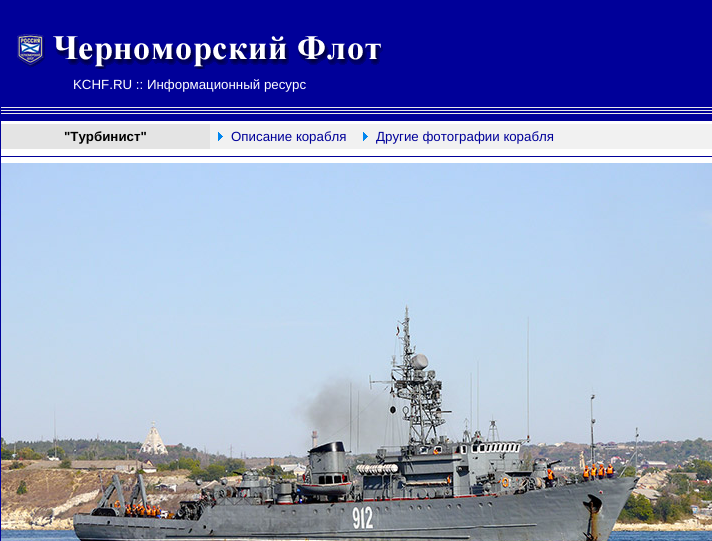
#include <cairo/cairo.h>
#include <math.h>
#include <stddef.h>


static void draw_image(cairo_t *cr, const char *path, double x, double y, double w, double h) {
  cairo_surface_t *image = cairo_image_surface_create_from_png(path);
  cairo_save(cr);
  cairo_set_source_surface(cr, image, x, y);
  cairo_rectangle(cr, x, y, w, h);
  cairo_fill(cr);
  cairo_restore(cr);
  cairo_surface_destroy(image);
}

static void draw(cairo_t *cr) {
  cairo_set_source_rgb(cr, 0, 0, 153 / 255.0);
  cairo_paint(cr);
  cairo_set_source_rgb(cr, 1, 1, 1);
  cairo_rectangle(cr, 1, 121, 711, 42);
  cairo_fill(cr);
  draw_image(cr, "images/1.png", 17, 34, 366, 35);
  draw_image(cr, "images/2.png", 1, 107, 711, 7);
  cairo_set_source_rgb(cr, 228 / 255.0, 228 / 255.0, 228 / 255.0);
  cairo_rectangle(cr, 1, 124, 209, 25);
  cairo_fill(cr);
  cairo_set_source_rgb(cr, 241 / 255.0, 241 / 255.0, 241 / 255.0);
  cairo_rectangle(cr, 210, 124, 502, 25);
  cairo_fill(cr);
  draw_image(cr, "images/3.png", 218, 132, 5, 9);
  draw_image(cr, "images/3.png", 363, 132, 5, 9);
  cairo_set_source_rgb(cr, 0, 0, 153 / 255.0);
  cairo_rectangle(cr, 1, 156, 711, 1);
  cairo_fill(cr);
  draw_image(cr, "images/4.png", 1, 163, 711, 378);
  cairo_select_font_face(cr, "Liberation Sans", CAIRO_FONT_SLANT_NORMAL, CAIRO_FONT_WEIGHT_NORMAL);
  cairo_set_font_size(cr, 13.3);
  cairo_set_source_rgb(cr, 1, 1, 1);
  cairo_move_to(cr, 73, 89);
  cairo_show_text(cr, "KCHF.RU :: Информационный ресурс");
  cairo_select_font_face(cr, "Liberation Sans", CAIRO_FONT_SLANT_NORMAL, CAIRO_FONT_WEIGHT_BOLD);
  cairo_set_source_rgb(cr, 0, 0, 0);
  cairo_move_to(cr, 64, 141);
  cairo_show_text(cr, "\"Турбинист\"");
  cairo_select_font_face(cr, "Liberation Sans", CAIRO_FONT_SLANT_NORMAL, CAIRO_FONT_WEIGHT_NORMAL);
  cairo_set_source_rgb(cr, 0, 0, 153 / 255.0);
  cairo_move_to(cr, 231, 141);
  cairo_show_text(cr, "Описание корабля");
  cairo_move_to(cr, 376, 141);
  cairo_show_text(cr, "Другие фотографии корабля");
}

int main(void) {
  cairo_surface_t *surface = cairo_image_surface_create(CAIRO_FORMAT_RGB24, 712, 541);
  cairo_t *cr = cairo_create(surface);
  cairo_font_options_t *options = cairo_font_options_create();
  cairo_font_options_set_hint_metrics(options, CAIRO_HINT_METRICS_OFF);
  cairo_font_options_set_hint_style(options, CAIRO_HINT_STYLE_NONE);
  cairo_set_font_options(cr, options);
  cairo_set_miter_limit(cr, 4);
  draw(cr);
  cairo_surface_write_to_png(surface, "out.png");
  cairo_font_options_destroy(options);
  cairo_destroy(cr);
  cairo_surface_destroy(surface);
  return 0;
}
